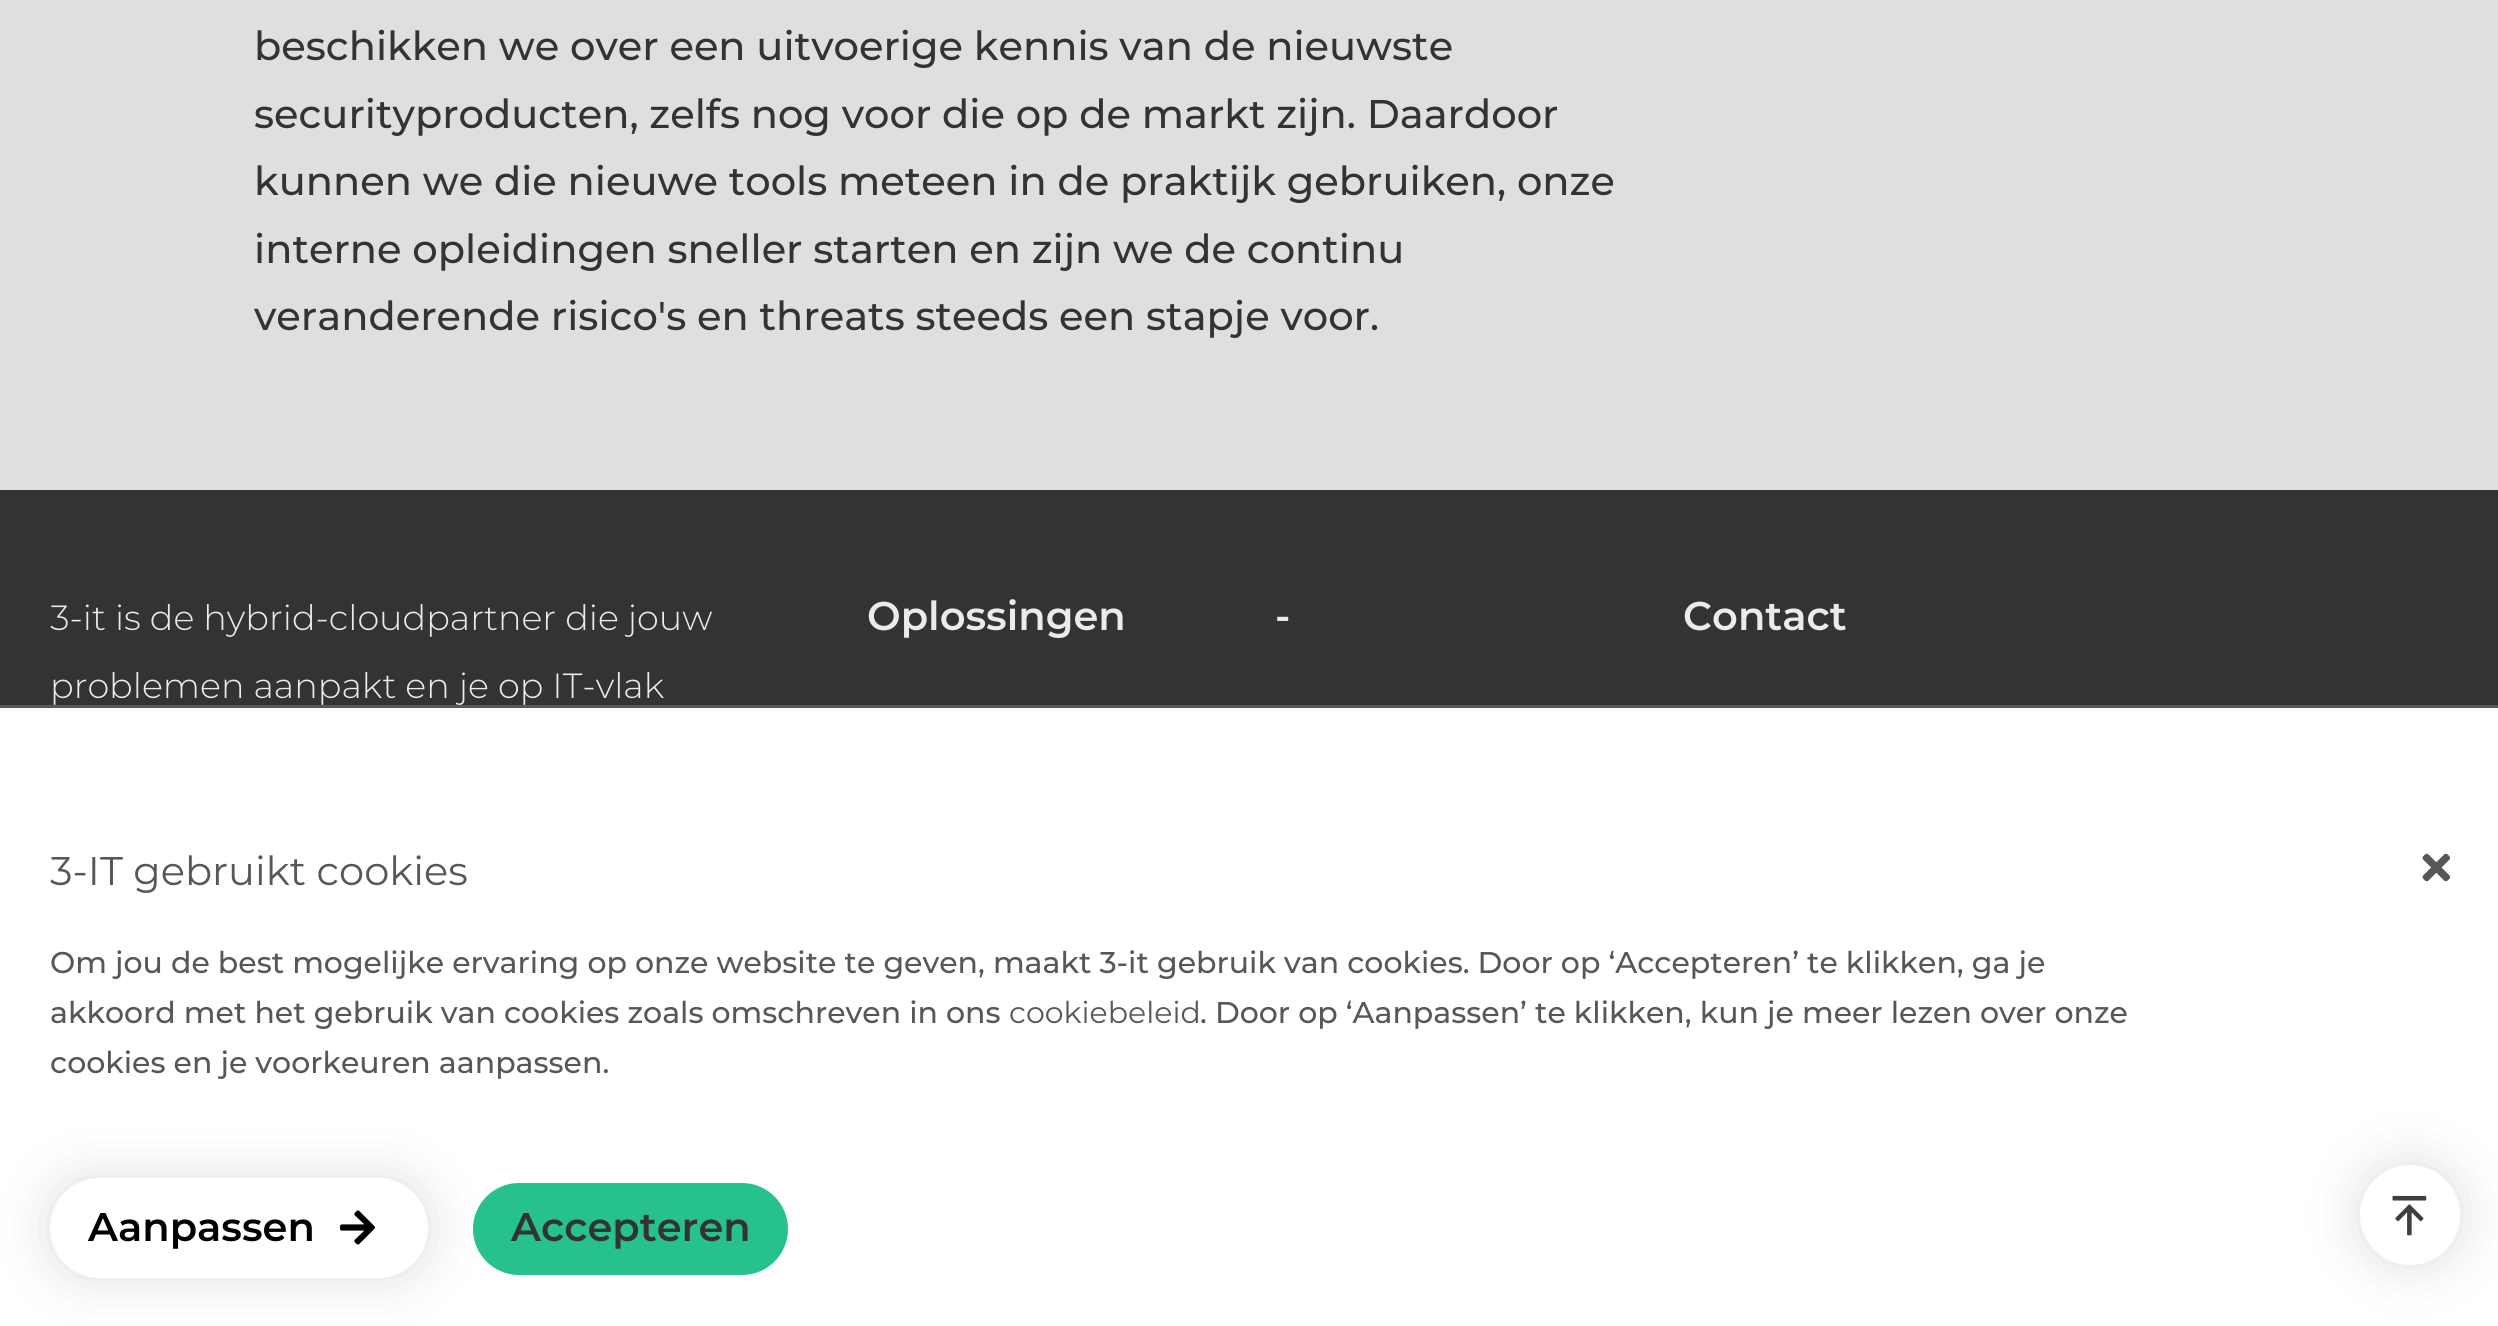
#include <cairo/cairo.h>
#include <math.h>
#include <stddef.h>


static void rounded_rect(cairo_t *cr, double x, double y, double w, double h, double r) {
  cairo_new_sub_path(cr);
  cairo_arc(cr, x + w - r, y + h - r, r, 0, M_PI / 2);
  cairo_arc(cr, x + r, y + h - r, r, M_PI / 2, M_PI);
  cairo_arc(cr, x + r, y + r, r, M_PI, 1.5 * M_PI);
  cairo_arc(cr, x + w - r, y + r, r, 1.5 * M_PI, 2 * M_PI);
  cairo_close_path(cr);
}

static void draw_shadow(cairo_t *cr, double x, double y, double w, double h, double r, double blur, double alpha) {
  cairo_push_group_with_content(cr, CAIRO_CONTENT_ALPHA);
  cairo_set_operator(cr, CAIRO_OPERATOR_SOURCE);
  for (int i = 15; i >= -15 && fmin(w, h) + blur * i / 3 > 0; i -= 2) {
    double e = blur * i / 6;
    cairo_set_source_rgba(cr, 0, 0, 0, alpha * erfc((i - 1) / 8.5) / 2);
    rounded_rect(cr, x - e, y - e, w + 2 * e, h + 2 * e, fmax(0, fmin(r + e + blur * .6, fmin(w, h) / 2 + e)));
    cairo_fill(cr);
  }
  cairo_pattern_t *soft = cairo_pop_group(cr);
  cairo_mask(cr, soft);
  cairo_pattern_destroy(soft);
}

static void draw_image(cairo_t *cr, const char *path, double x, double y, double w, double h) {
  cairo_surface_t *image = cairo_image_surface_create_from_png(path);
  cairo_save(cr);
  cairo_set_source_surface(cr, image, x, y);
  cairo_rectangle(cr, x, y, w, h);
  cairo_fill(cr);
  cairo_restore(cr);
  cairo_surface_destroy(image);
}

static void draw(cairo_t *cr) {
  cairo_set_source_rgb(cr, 223 / 255.0, 223 / 255.0, 223 / 255.0);
  cairo_paint(cr);
  cairo_set_source_rgb(cr, 51 / 255.0, 51 / 255.0, 51 / 255.0);
  cairo_rectangle(cr, 0, 490, 2498, 215);
  cairo_fill(cr);
  cairo_set_source_rgb(cr, 1, 1, 1);
  cairo_rectangle(cr, 0, 708, 2498, 618);
  cairo_fill(cr);
  cairo_set_source_rgb(cr, 174 / 255.0, 174 / 255.0, 174 / 255.0);
  draw_shadow(cr, 2360, 1165, 100, 100, 50, 25, 0.4);
  cairo_set_source_rgb(cr, 1, 1, 1);
  cairo_arc(cr, 2410, 1215, 50, 0, 2 * M_PI);
  cairo_fill(cr);
  draw_image(cr, "images/1.png", 2392, 1195, 35, 41);
  cairo_set_source_rgb(cr, 87 / 255.0, 87 / 255.0, 86 / 255.0);
  cairo_rectangle(cr, 0, 705, 2498, 3);
  cairo_fill(cr);
  draw_image(cr, "images/2.png", 2422, 853, 28, 29);
  cairo_set_source_rgb(cr, 174 / 255.0, 174 / 255.0, 174 / 255.0);
  draw_shadow(cr, 50, 1178, 378, 100, 50, 25, 0.4);
  cairo_set_source_rgb(cr, 1, 1, 1);
  rounded_rect(cr, 50, 1178, 378, 100, 50);
  cairo_fill(cr);
  draw_image(cr, "images/3.png", 340, 1210, 35, 35);
  cairo_set_source_rgb(cr, 39 / 255.0, 193 / 255.0, 142 / 255.0);
  rounded_rect(cr, 473, 1183, 315, 92, 46);
  cairo_fill(cr);
  cairo_select_font_face(cr, "Montserrat Medium", CAIRO_FONT_SLANT_NORMAL, CAIRO_FONT_WEIGHT_NORMAL);
  cairo_set_font_size(cr, 40);
  cairo_set_source_rgb(cr, 51 / 255.0, 51 / 255.0, 51 / 255.0);
  cairo_move_to(cr, 254, 60);
  cairo_show_text(cr, "beschikken we over een uitvoerige kennis van de nieuwste");
  cairo_move_to(cr, 254, 128);
  cairo_show_text(cr, "securityproducten, zelfs nog voor die op de markt zijn. Daardoor");
  cairo_move_to(cr, 254, 195);
  cairo_show_text(cr, "kunnen we die nieuwe tools meteen in de praktijk gebruiken, onze");
  cairo_move_to(cr, 254, 263);
  cairo_show_text(cr, "interne opleidingen sneller starten en zijn we de continu");
  cairo_move_to(cr, 254, 330);
  cairo_show_text(cr, "veranderende risico's en threats steeds een stapje voor.");
  cairo_select_font_face(cr, "Montserrat Light", CAIRO_FONT_SLANT_NORMAL, CAIRO_FONT_WEIGHT_NORMAL);
  cairo_set_font_size(cr, 35);
  cairo_set_source_rgb(cr, 235 / 255.0, 235 / 255.0, 235 / 255.0);
  cairo_move_to(cr, 50, 630);
  cairo_show_text(cr, "3-it is de hybrid-cloudpartner die jouw");
  cairo_move_to(cr, 50, 698);
  cairo_show_text(cr, "problemen aanpakt en je op IT-vlak");
  cairo_select_font_face(cr, "Montserrat SemiBold", CAIRO_FONT_SLANT_NORMAL, CAIRO_FONT_WEIGHT_NORMAL);
  cairo_set_font_size(cr, 40);
  cairo_move_to(cr, 867, 630);
  cairo_show_text(cr, "Oplossingen");
  cairo_move_to(cr, 1275, 630);
  cairo_show_text(cr, "-");
  cairo_move_to(cr, 1683, 630);
  cairo_show_text(cr, "Contact");
  cairo_select_font_face(cr, "Montserrat", CAIRO_FONT_SLANT_NORMAL, CAIRO_FONT_WEIGHT_NORMAL);
  cairo_set_source_rgb(cr, 87 / 255.0, 87 / 255.0, 86 / 255.0);
  cairo_move_to(cr, 50, 885);
  cairo_show_text(cr, "3-IT gebruikt cookies");
  cairo_select_font_face(cr, "Montserrat Medium", CAIRO_FONT_SLANT_NORMAL, CAIRO_FONT_WEIGHT_NORMAL);
  cairo_set_font_size(cr, 30);
  cairo_move_to(cr, 50, 973);
  cairo_show_text(cr, "Om jou de best mogelijke ervaring op onze website te geven, maakt 3-it gebruik van cookies. Door op ‘Accepteren’ te klikken, ga je");
  cairo_move_to(cr, 50, 1023);
  cairo_show_text(cr, "akkoord met het gebruik van cookies zoals omschreven in ons");
  cairo_select_font_face(cr, "Montserrat", CAIRO_FONT_SLANT_NORMAL, CAIRO_FONT_WEIGHT_NORMAL);
  cairo_move_to(cr, 1009, 1023);
  cairo_show_text(cr, "cookiebeleid");
  cairo_select_font_face(cr, "Montserrat Medium", CAIRO_FONT_SLANT_NORMAL, CAIRO_FONT_WEIGHT_NORMAL);
  cairo_move_to(cr, 1200, 1023);
  cairo_show_text(cr, ". Door op ‘Aanpassen’ te klikken, kun je meer lezen over onze");
  cairo_move_to(cr, 50, 1073);
  cairo_show_text(cr, "cookies en je voorkeuren aanpassen.");
  cairo_select_font_face(cr, "Montserrat SemiBold", CAIRO_FONT_SLANT_NORMAL, CAIRO_FONT_WEIGHT_NORMAL);
  cairo_set_font_size(cr, 40);
  cairo_set_source_rgb(cr, 0, 0, 0);
  cairo_move_to(cr, 88, 1241);
  cairo_show_text(cr, "Aanpassen");
  cairo_set_source_rgb(cr, 51 / 255.0, 51 / 255.0, 51 / 255.0);
  cairo_move_to(cr, 511, 1241);
  cairo_show_text(cr, "Accepteren");
}

int main(void) {
  cairo_surface_t *surface = cairo_image_surface_create(CAIRO_FORMAT_RGB24, 2498, 1326);
  cairo_t *cr = cairo_create(surface);
  cairo_font_options_t *options = cairo_font_options_create();
  cairo_font_options_set_hint_metrics(options, CAIRO_HINT_METRICS_OFF);
  cairo_font_options_set_hint_style(options, CAIRO_HINT_STYLE_NONE);
  cairo_set_font_options(cr, options);
  cairo_set_miter_limit(cr, 4);
  draw(cr);
  cairo_surface_write_to_png(surface, "out.png");
  cairo_font_options_destroy(options);
  cairo_destroy(cr);
  cairo_surface_destroy(surface);
  return 0;
}
